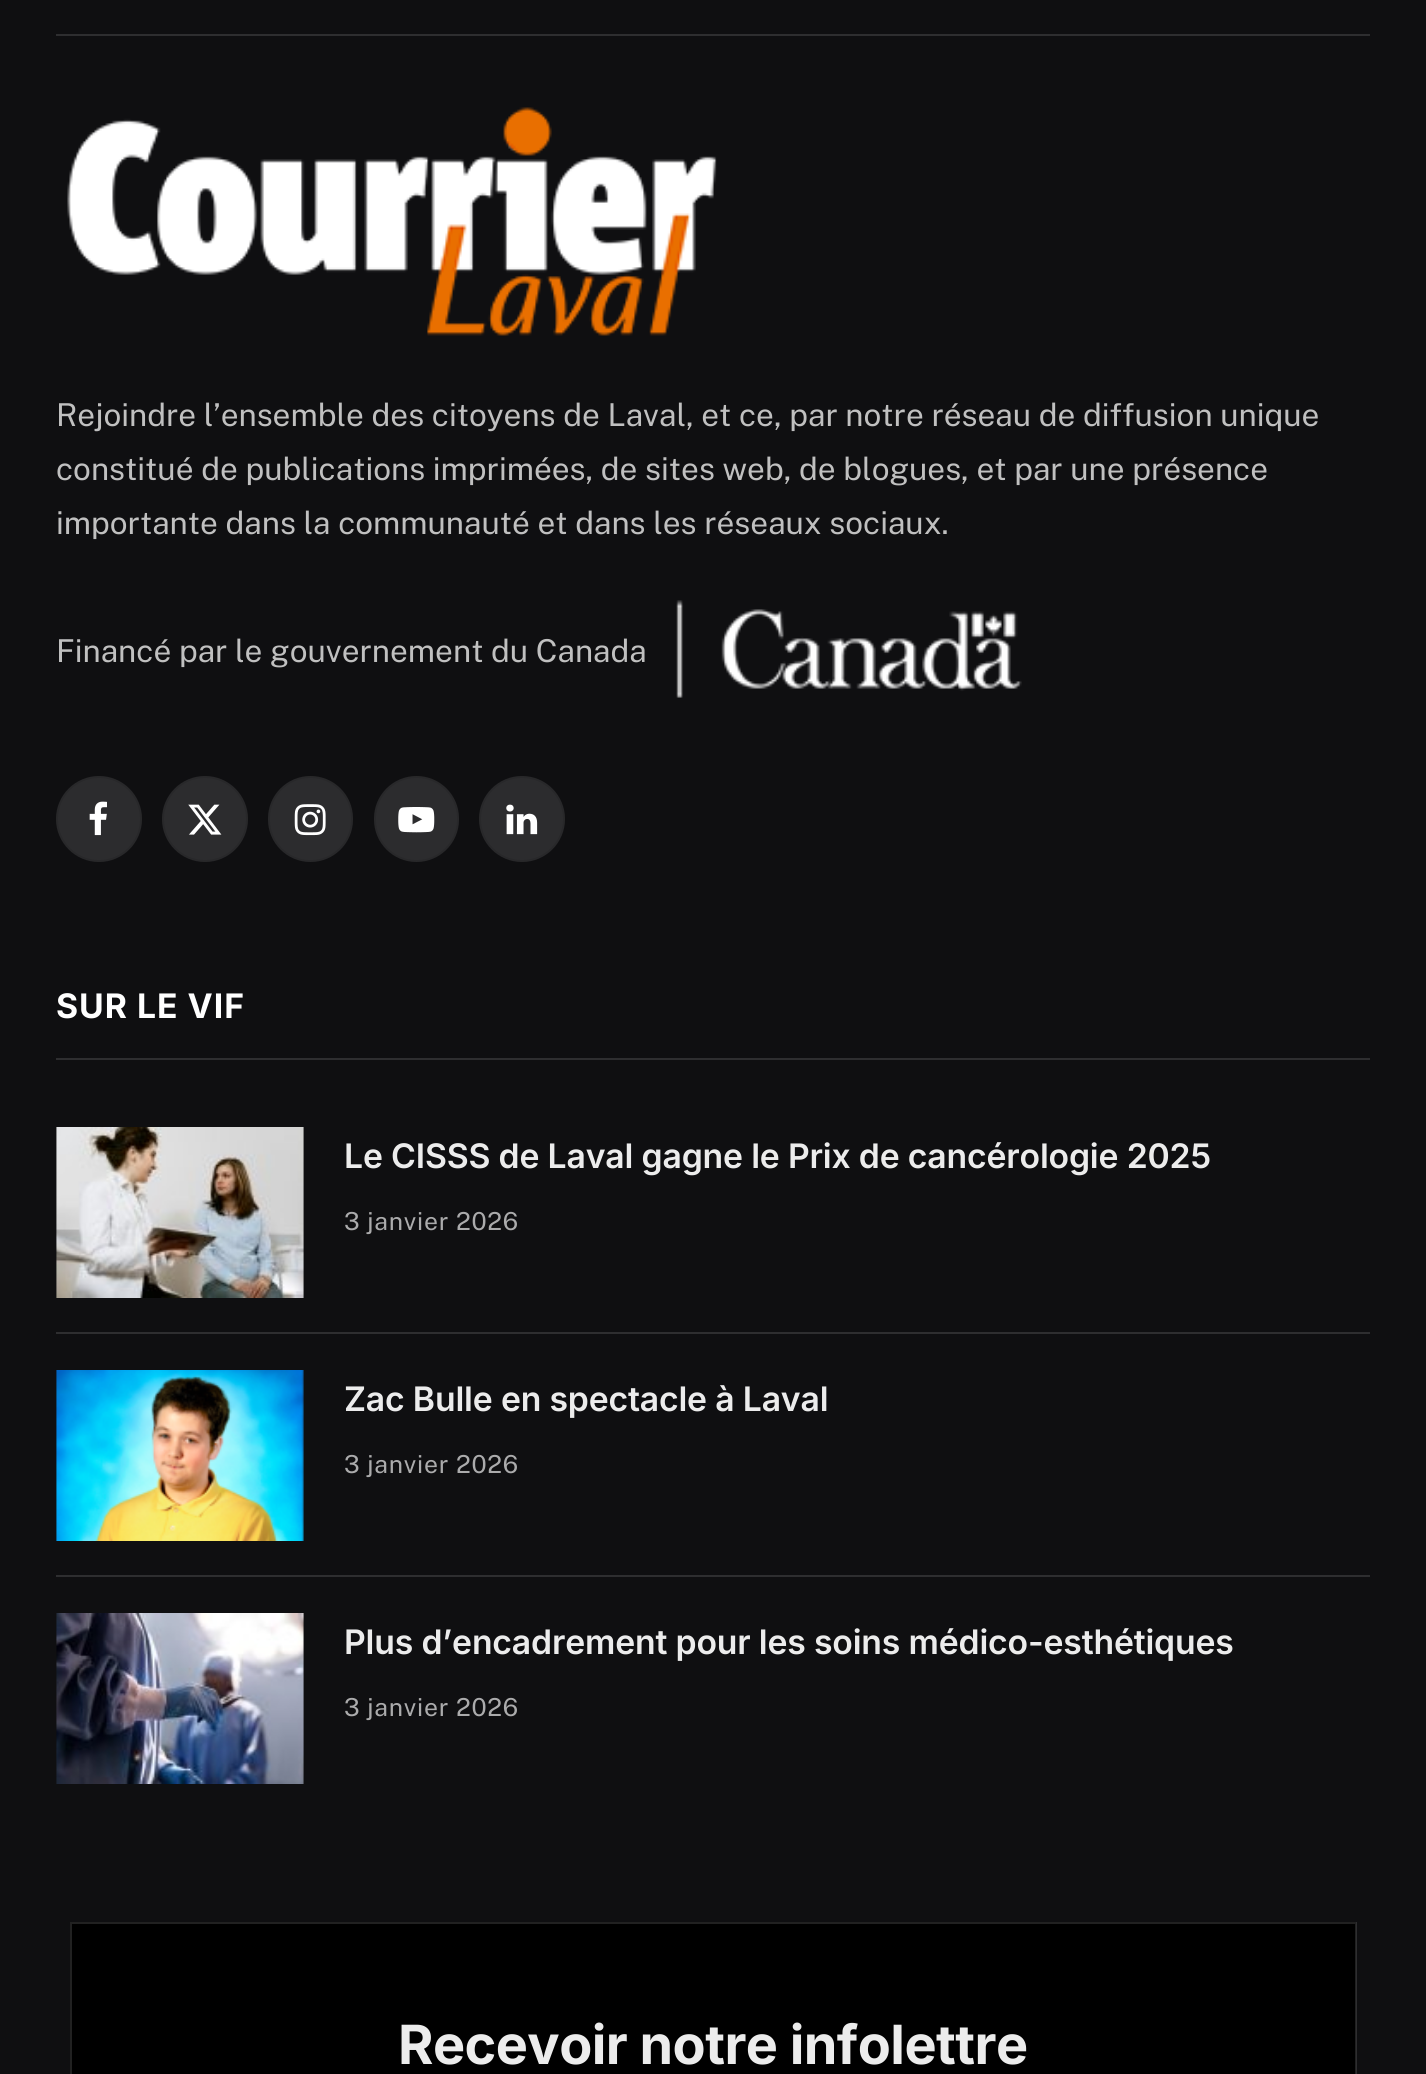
#include <cairo/cairo.h>
#include <math.h>
#include <stddef.h>


static void draw_spaced(cairo_t *cr, double x, double y, const char *s, double letter, double word) {
  cairo_move_to(cr, x, y);
  while (*s) {
    char ch[5] = {0};
    int n = 0;
    do ch[n++] = *s++; while ((*s & 0xC0) == 0x80);
    cairo_show_text(cr, ch);
    cairo_rel_move_to(cr, letter + word * (*ch == ' '), 0);
  }
}

static void rounded_rect(cairo_t *cr, double x, double y, double w, double h, double r) {
  cairo_new_sub_path(cr);
  cairo_arc(cr, x + w - r, y + h - r, r, 0, M_PI / 2);
  cairo_arc(cr, x + r, y + h - r, r, M_PI / 2, M_PI);
  cairo_arc(cr, x + r, y + r, r, M_PI, 1.5 * M_PI);
  cairo_arc(cr, x + w - r, y + r, r, 1.5 * M_PI, 2 * M_PI);
  cairo_close_path(cr);
}

static void draw_image(cairo_t *cr, const char *path, double x, double y, double w, double h) {
  cairo_surface_t *image = cairo_image_surface_create_from_png(path);
  cairo_save(cr);
  cairo_set_source_surface(cr, image, x, y);
  cairo_rectangle(cr, x, y, w, h);
  cairo_fill(cr);
  cairo_restore(cr);
  cairo_surface_destroy(image);
}

static void draw(cairo_t *cr) {
  cairo_set_source_rgb(cr, 15 / 255.0, 15 / 255.0, 17 / 255.0);
  cairo_paint(cr);
  cairo_set_source_rgb(cr, 46 / 255.0, 46 / 255.0, 48 / 255.0);
  cairo_rectangle(cr, 56, 34, 1314, 2);
  cairo_fill(cr);
  draw_image(cr, "images/1.png", 67, 107, 650, 229);
  draw_image(cr, "images/2.png", 676, 600, 346, 98);
  cairo_set_source_rgb(cr, 44 / 255.0, 44 / 255.0, 46 / 255.0);
  cairo_arc(cr, 99, 819, 43, 0, 2 * M_PI);
  cairo_fill(cr);
  cairo_arc(cr, 99, 819, 42, 0, 2 * M_PI);
  cairo_set_source_rgba(cr, 0, 0, 0, 0.09);
  cairo_stroke(cr);
  draw_image(cr, "images/3.png", 89, 801, 18, 35);
  cairo_set_source_rgb(cr, 44 / 255.0, 44 / 255.0, 46 / 255.0);
  cairo_arc(cr, 205, 819, 43, 0, 2 * M_PI);
  cairo_fill(cr);
  cairo_arc(cr, 205, 819, 42, 0, 2 * M_PI);
  cairo_set_source_rgba(cr, 0, 0, 0, 0.09);
  cairo_stroke(cr);
  draw_image(cr, "images/4.png", 188, 804, 34, 31);
  cairo_set_source_rgb(cr, 44 / 255.0, 44 / 255.0, 46 / 255.0);
  rounded_rect(cr, 268, 776, 85, 86, 42.5);
  cairo_fill(cr);
  rounded_rect(cr, 269, 777, 83, 84, 41.5);
  cairo_set_source_rgba(cr, 0, 0, 0, 0.09);
  cairo_stroke(cr);
  draw_image(cr, "images/5.png", 294, 804, 32, 32);
  cairo_set_source_rgb(cr, 44 / 255.0, 44 / 255.0, 46 / 255.0);
  rounded_rect(cr, 374, 776, 85, 86, 42.5);
  cairo_fill(cr);
  rounded_rect(cr, 375, 777, 83, 84, 41.5);
  cairo_set_source_rgba(cr, 0, 0, 0, 0.09);
  cairo_stroke(cr);
  draw_image(cr, "images/6.png", 398, 807, 37, 26);
  cairo_set_source_rgb(cr, 44 / 255.0, 44 / 255.0, 46 / 255.0);
  cairo_arc(cr, 522, 819, 43, 0, 2 * M_PI);
  cairo_fill(cr);
  cairo_arc(cr, 522, 819, 42, 0, 2 * M_PI);
  cairo_set_source_rgba(cr, 0, 0, 0, 0.09);
  cairo_stroke(cr);
  draw_image(cr, "images/7.png", 506, 804, 32, 31);
  cairo_set_source_rgb(cr, 46 / 255.0, 46 / 255.0, 48 / 255.0);
  cairo_rectangle(cr, 56, 1058, 1314, 2);
  cairo_fill(cr);
  draw_image(cr, "images/8.png", 56, 1127, 248, 171);
  cairo_rectangle(cr, 56, 1332, 1314, 2);
  cairo_fill(cr);
  draw_image(cr, "images/9.png", 56, 1370, 248, 171);
  cairo_rectangle(cr, 56, 1575, 1314, 2);
  cairo_fill(cr);
  draw_image(cr, "images/10.png", 56, 1613, 248, 171);
  cairo_set_source_rgb(cr, 0, 0, 0);
  cairo_rectangle(cr, 70, 1922, 1286, 152);
  cairo_fill(cr);
  cairo_rectangle(cr, 71, 1923, 1285, 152);
  cairo_set_source_rgba(cr, 1, 1, 1, 0.13);
  cairo_stroke(cr);
  cairo_select_font_face(cr, "Public Sans", CAIRO_FONT_SLANT_NORMAL, CAIRO_FONT_WEIGHT_NORMAL);
  cairo_set_font_size(cr, 31.5);
  cairo_set_source_rgb(cr, 192 / 255.0, 192 / 255.0, 192 / 255.0);
  cairo_move_to(cr, 56, 426);
  cairo_show_text(cr, "Rejoindre l’ensemble des citoyens de Laval, et ce, par notre réseau de diffusion unique");
  cairo_move_to(cr, 56, 480);
  cairo_show_text(cr, "constitué de publications imprimées, de sites web, de blogues, et par une présence");
  cairo_move_to(cr, 56, 534);
  cairo_show_text(cr, "importante dans la communauté et dans les réseaux sociaux.");
  cairo_move_to(cr, 56, 662);
  cairo_show_text(cr, "Financé par le gouvernement du Canada");
  cairo_select_font_face(cr, "Inter", CAIRO_FONT_SLANT_NORMAL, CAIRO_FONT_WEIGHT_BOLD);
  cairo_set_font_size(cr, 33.75);
  cairo_set_source_rgb(cr, 1, 1, 1);
  draw_spaced(cr, 56, 1018, "SUR LE VIF", 1, 0);
  cairo_select_font_face(cr, "Inter SemiBold", CAIRO_FONT_SLANT_NORMAL, CAIRO_FONT_WEIGHT_NORMAL);
  cairo_set_source_rgb(cr, 236 / 255.0, 236 / 255.0, 236 / 255.0);
  draw_spaced(cr, 344, 1168, "Le CISSS de Laval gagne le Prix de cancérologie 2025", -0.17, 0);
  cairo_select_font_face(cr, "Public Sans", CAIRO_FONT_SLANT_NORMAL, CAIRO_FONT_WEIGHT_NORMAL);
  cairo_set_font_size(cr, 24.75);
  cairo_set_source_rgb(cr, 171 / 255.0, 171 / 255.0, 172 / 255.0);
  draw_spaced(cr, 344, 1230, "3 janvier 2026", 0.75, 0);
  cairo_select_font_face(cr, "Inter SemiBold", CAIRO_FONT_SLANT_NORMAL, CAIRO_FONT_WEIGHT_NORMAL);
  cairo_set_font_size(cr, 33.75);
  cairo_set_source_rgb(cr, 236 / 255.0, 236 / 255.0, 236 / 255.0);
  draw_spaced(cr, 344, 1411, "Zac Bulle en spectacle à Laval", -0.17, 0);
  cairo_select_font_face(cr, "Public Sans", CAIRO_FONT_SLANT_NORMAL, CAIRO_FONT_WEIGHT_NORMAL);
  cairo_set_font_size(cr, 24.75);
  cairo_set_source_rgb(cr, 171 / 255.0, 171 / 255.0, 172 / 255.0);
  draw_spaced(cr, 344, 1473, "3 janvier 2026", 0.75, 0);
  cairo_select_font_face(cr, "Inter SemiBold", CAIRO_FONT_SLANT_NORMAL, CAIRO_FONT_WEIGHT_NORMAL);
  cairo_set_font_size(cr, 33.75);
  cairo_set_source_rgb(cr, 236 / 255.0, 236 / 255.0, 236 / 255.0);
  draw_spaced(cr, 344, 1654, "Plus d’encadrement pour les soins médico-esthétiques", -0.17, 0);
  cairo_select_font_face(cr, "Public Sans", CAIRO_FONT_SLANT_NORMAL, CAIRO_FONT_WEIGHT_NORMAL);
  cairo_set_font_size(cr, 24.75);
  cairo_set_source_rgb(cr, 171 / 255.0, 171 / 255.0, 172 / 255.0);
  draw_spaced(cr, 344, 1716, "3 janvier 2026", 0.75, 0);
  cairo_select_font_face(cr, "Inter", CAIRO_FONT_SLANT_NORMAL, CAIRO_FONT_WEIGHT_BOLD);
  cairo_set_font_size(cr, 54);
  cairo_set_source_rgb(cr, 236 / 255.0, 236 / 255.0, 236 / 255.0);
  draw_spaced(cr, 398, 2064, "Recevoir notre infolettre", -0.55, 0);
}

int main(void) {
  cairo_surface_t *surface = cairo_image_surface_create(CAIRO_FORMAT_RGB24, 1426, 2074);
  cairo_t *cr = cairo_create(surface);
  cairo_font_options_t *options = cairo_font_options_create();
  cairo_font_options_set_hint_metrics(options, CAIRO_HINT_METRICS_OFF);
  cairo_font_options_set_hint_style(options, CAIRO_HINT_STYLE_NONE);
  cairo_set_font_options(cr, options);
  cairo_set_miter_limit(cr, 4);
  draw(cr);
  cairo_surface_write_to_png(surface, "out.png");
  cairo_font_options_destroy(options);
  cairo_destroy(cr);
  cairo_surface_destroy(surface);
  return 0;
}
